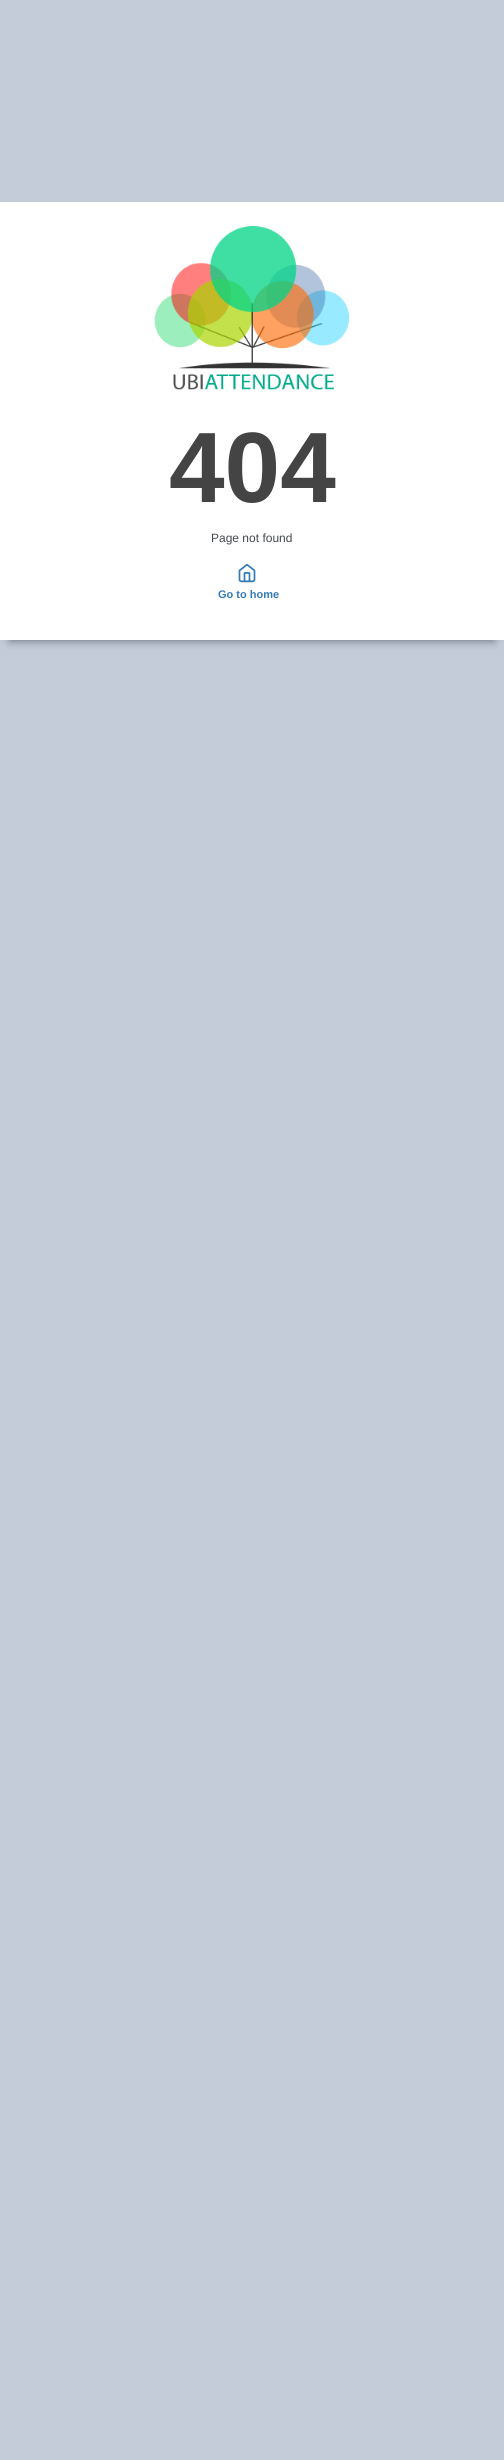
#include <cairo/cairo.h>
#include <math.h>
#include <stddef.h>


static void rounded_rect(cairo_t *cr, double x, double y, double w, double h, double r) {
  cairo_new_sub_path(cr);
  cairo_arc(cr, x + w - r, y + h - r, r, 0, M_PI / 2);
  cairo_arc(cr, x + r, y + h - r, r, M_PI / 2, M_PI);
  cairo_arc(cr, x + r, y + r, r, M_PI, 1.5 * M_PI);
  cairo_arc(cr, x + w - r, y + r, r, 1.5 * M_PI, 2 * M_PI);
  cairo_close_path(cr);
}

static void draw_shadow(cairo_t *cr, double x, double y, double w, double h, double r, double blur, double alpha) {
  cairo_push_group_with_content(cr, CAIRO_CONTENT_ALPHA);
  cairo_set_operator(cr, CAIRO_OPERATOR_SOURCE);
  for (int i = 15; i >= -15 && fmin(w, h) + blur * i / 3 > 0; i -= 2) {
    double e = blur * i / 6;
    cairo_set_source_rgba(cr, 0, 0, 0, alpha * erfc((i - 1) / 8.5) / 2);
    rounded_rect(cr, x - e, y - e, w + 2 * e, h + 2 * e, fmax(0, fmin(r + e + blur * .6, fmin(w, h) / 2 + e)));
    cairo_fill(cr);
  }
  cairo_pattern_t *soft = cairo_pop_group(cr);
  cairo_mask(cr, soft);
  cairo_pattern_destroy(soft);
}

static void draw_image(cairo_t *cr, const char *path, double x, double y, double w, double h) {
  cairo_surface_t *image = cairo_image_surface_create_from_png(path);
  cairo_save(cr);
  cairo_set_source_surface(cr, image, x, y);
  cairo_rectangle(cr, x, y, w, h);
  cairo_fill(cr);
  cairo_restore(cr);
  cairo_surface_destroy(image);
}

static void draw(cairo_t *cr) {
  cairo_set_source_rgb(cr, 196 / 255.0, 204 / 255.0, 217 / 255.0);
  cairo_paint(cr);
  cairo_set_source_rgb(cr, 93 / 255.0, 101 / 255.0, 114 / 255.0);
  draw_shadow(cr, 10, 222, 484, 418, 0, 5, 1);
  cairo_set_source_rgb(cr, 1, 1, 1);
  cairo_rectangle(cr, 0, 202, 504, 438);
  cairo_fill(cr);
  draw_image(cr, "images/1.png", 154, 226, 196, 164);
  draw_image(cr, "images/2.png", 238, 563, 18, 20);
  cairo_select_font_face(cr, "Liberation Sans", CAIRO_FONT_SLANT_NORMAL, CAIRO_FONT_WEIGHT_BOLD);
  cairo_set_font_size(cr, 100);
  cairo_set_source_rgb(cr, 68 / 255.0, 68 / 255.0, 68 / 255.0);
  cairo_move_to(cr, 169, 502);
  cairo_show_text(cr, "404");
  cairo_select_font_face(cr, "Liberation Sans", CAIRO_FONT_SLANT_NORMAL, CAIRO_FONT_WEIGHT_NORMAL);
  cairo_set_font_size(cr, 12);
  cairo_set_source_rgb(cr, 66 / 255.0, 73 / 255.0, 79 / 255.0);
  cairo_move_to(cr, 211, 542);
  cairo_show_text(cr, "Page not found");
  cairo_select_font_face(cr, "Liberation Sans", CAIRO_FONT_SLANT_NORMAL, CAIRO_FONT_WEIGHT_BOLD);
  cairo_set_font_size(cr, 11);
  cairo_set_source_rgb(cr, 51 / 255.0, 122 / 255.0, 183 / 255.0);
  cairo_move_to(cr, 218, 598);
  cairo_show_text(cr, "Go to home");
}

int main(void) {
  cairo_surface_t *surface = cairo_image_surface_create(CAIRO_FORMAT_RGB24, 504, 2460);
  cairo_t *cr = cairo_create(surface);
  cairo_font_options_t *options = cairo_font_options_create();
  cairo_font_options_set_hint_metrics(options, CAIRO_HINT_METRICS_OFF);
  cairo_font_options_set_hint_style(options, CAIRO_HINT_STYLE_NONE);
  cairo_set_font_options(cr, options);
  cairo_set_miter_limit(cr, 4);
  draw(cr);
  cairo_surface_write_to_png(surface, "out.png");
  cairo_font_options_destroy(options);
  cairo_destroy(cr);
  cairo_surface_destroy(surface);
  return 0;
}
